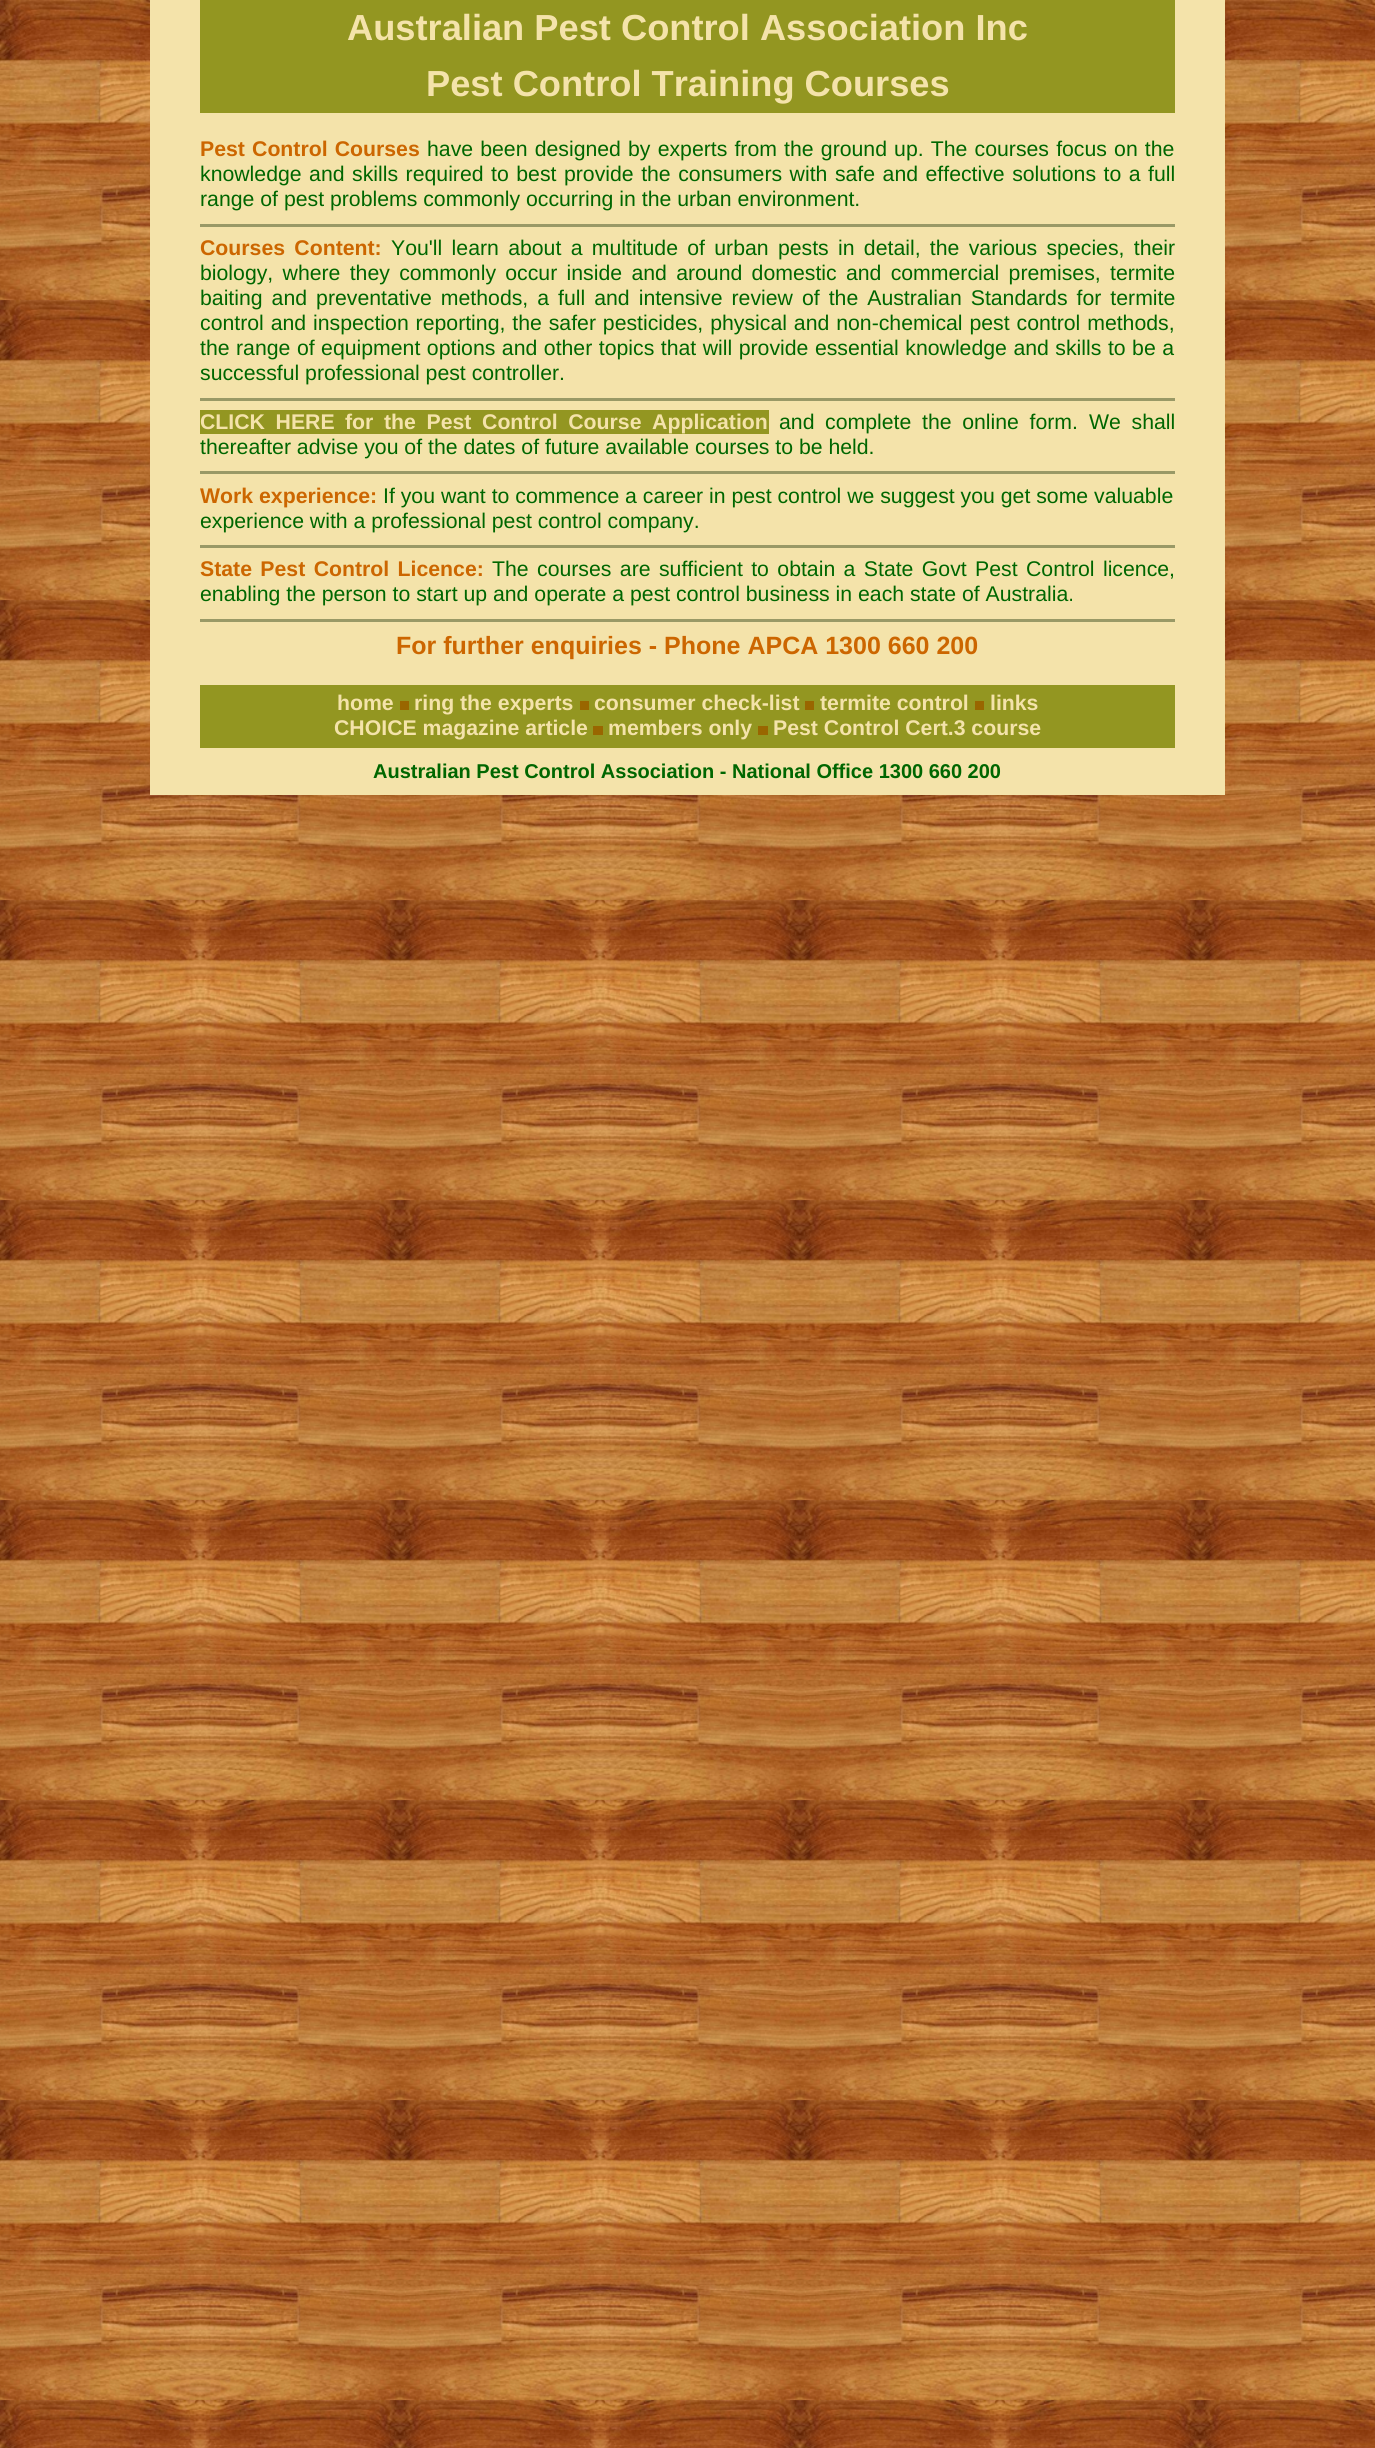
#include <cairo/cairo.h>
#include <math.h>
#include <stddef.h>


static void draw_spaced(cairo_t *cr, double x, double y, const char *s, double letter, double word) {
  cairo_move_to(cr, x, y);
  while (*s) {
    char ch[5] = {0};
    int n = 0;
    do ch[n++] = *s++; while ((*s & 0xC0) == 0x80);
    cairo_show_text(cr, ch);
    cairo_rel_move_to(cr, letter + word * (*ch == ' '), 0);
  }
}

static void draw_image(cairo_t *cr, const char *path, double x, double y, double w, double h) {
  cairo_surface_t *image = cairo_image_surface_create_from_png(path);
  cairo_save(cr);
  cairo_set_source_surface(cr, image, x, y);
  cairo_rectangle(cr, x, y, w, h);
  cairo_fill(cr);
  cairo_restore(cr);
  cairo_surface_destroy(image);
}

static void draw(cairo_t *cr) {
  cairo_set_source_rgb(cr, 1, 1, 1);
  cairo_paint(cr);
  draw_image(cr, "images/1.png", 0, 0, 1375, 2448);
  cairo_set_source_rgb(cr, 244 / 255.0, 227 / 255.0, 170 / 255.0);
  cairo_rectangle(cr, 150, 0, 50, 795);
  cairo_fill(cr);
  cairo_set_source_rgb(cr, 147 / 255.0, 150 / 255.0, 33 / 255.0);
  cairo_rectangle(cr, 200, 0, 975, 113);
  cairo_fill(cr);
  cairo_set_source_rgb(cr, 244 / 255.0, 227 / 255.0, 170 / 255.0);
  cairo_rectangle(cr, 1175, 0, 50, 748);
  cairo_fill(cr);
  cairo_rectangle(cr, 200, 113, 975, 572);
  cairo_fill(cr);
  cairo_set_source_rgb(cr, 153 / 255.0, 153 / 255.0, 102 / 255.0);
  cairo_rectangle(cr, 200, 224, 975, 3);
  cairo_fill(cr);
  cairo_rectangle(cr, 200, 398, 975, 3);
  cairo_fill(cr);
  cairo_set_source_rgb(cr, 147 / 255.0, 150 / 255.0, 33 / 255.0);
  cairo_rectangle(cr, 200, 410, 569, 24);
  cairo_fill(cr);
  cairo_set_source_rgb(cr, 153 / 255.0, 153 / 255.0, 102 / 255.0);
  cairo_rectangle(cr, 200, 471, 975, 3);
  cairo_fill(cr);
  cairo_rectangle(cr, 200, 545, 975, 3);
  cairo_fill(cr);
  cairo_rectangle(cr, 200, 619, 975, 3);
  cairo_fill(cr);
  cairo_set_source_rgb(cr, 147 / 255.0, 150 / 255.0, 33 / 255.0);
  cairo_rectangle(cr, 200, 685, 975, 63);
  cairo_fill(cr);
  cairo_set_source_rgb(cr, 153 / 255.0, 102 / 255.0, 0);
  cairo_rectangle(cr, 400, 701, 9, 9);
  cairo_fill(cr);
  cairo_rectangle(cr, 580, 701, 9, 9);
  cairo_fill(cr);
  cairo_rectangle(cr, 805, 701, 9, 9);
  cairo_fill(cr);
  cairo_rectangle(cr, 975, 701, 9, 9);
  cairo_fill(cr);
  cairo_rectangle(cr, 593, 726, 10, 9);
  cairo_fill(cr);
  cairo_rectangle(cr, 758, 726, 10, 9);
  cairo_fill(cr);
  cairo_set_source_rgb(cr, 244 / 255.0, 227 / 255.0, 170 / 255.0);
  cairo_rectangle(cr, 200, 748, 1025, 47);
  cairo_fill(cr);
  cairo_select_font_face(cr, "Liberation Sans", CAIRO_FONT_SLANT_NORMAL, CAIRO_FONT_WEIGHT_BOLD);
  cairo_set_font_size(cr, 36.25);
  cairo_move_to(cr, 347, 40);
  cairo_show_text(cr, "Australian Pest Control Association Inc");
  cairo_move_to(cr, 426, 96);
  cairo_show_text(cr, "Pest Control Training Courses");
  cairo_set_font_size(cr, 21.25);
  cairo_set_source_rgb(cr, 204 / 255.0, 102 / 255.0, 0);
  draw_spaced(cr, 200, 156, "Pest Control Courses", 0, 1.25);
  cairo_select_font_face(cr, "Liberation Sans", CAIRO_FONT_SLANT_NORMAL, CAIRO_FONT_WEIGHT_NORMAL);
  cairo_set_source_rgb(cr, 0, 102 / 255.0, 0);
  draw_spaced(cr, 427, 156, "have been designed by experts from the ground up. The courses focus on the", 0, 1.25);
  draw_spaced(cr, 200, 181, "knowledge and skills required to best provide the consumers with safe and effective solutions to a full", 0, 1.6);
  cairo_move_to(cr, 200, 206);
  cairo_show_text(cr, "range of pest problems commonly occurring in the urban environment.");
  cairo_select_font_face(cr, "Liberation Sans", CAIRO_FONT_SLANT_NORMAL, CAIRO_FONT_WEIGHT_BOLD);
  cairo_set_source_rgb(cr, 204 / 255.0, 102 / 255.0, 0);
  draw_spaced(cr, 200, 255, "Courses Content:", 0, 3.4);
  cairo_select_font_face(cr, "Liberation Sans", CAIRO_FONT_SLANT_NORMAL, CAIRO_FONT_WEIGHT_NORMAL);
  cairo_set_source_rgb(cr, 0, 102 / 255.0, 0);
  draw_spaced(cr, 391, 255, "You'll learn about a multitude of urban pests in detail, the various species, their", 0, 3.4);
  draw_spaced(cr, 200, 280, "biology, where they commonly occur inside and around domestic and commercial premises, termite", 0, 3.4);
  draw_spaced(cr, 200, 305, "baiting and preventative methods, a full and intensive review of the Australian Standards for termite", 0, 3.1);
  draw_spaced(cr, 200, 330, "control and inspection reporting, the safer pesticides, physical and non-chemical pest control methods,", 0, 1);
  draw_spaced(cr, 200, 355, "the range of equipment options and other topics that will provide essential knowledge and skills to be a", 0, 0.6);
  cairo_move_to(cr, 200, 380);
  cairo_show_text(cr, "successful professional pest controller.");
  cairo_select_font_face(cr, "Liberation Sans", CAIRO_FONT_SLANT_NORMAL, CAIRO_FONT_WEIGHT_BOLD);
  cairo_set_source_rgb(cr, 244 / 255.0, 227 / 255.0, 170 / 255.0);
  draw_spaced(cr, 200, 429, "CLICK HERE", 0, 4.75);
  draw_spaced(cr, 345, 429, "for the Pest Control Course Application", 0, 4.75);
  cairo_select_font_face(cr, "Liberation Sans", CAIRO_FONT_SLANT_NORMAL, CAIRO_FONT_WEIGHT_NORMAL);
  cairo_set_source_rgb(cr, 0, 102 / 255.0, 0);
  draw_spaced(cr, 779, 429, "and complete the online form.", 0, 4.75);
  draw_spaced(cr, 1089, 429, "We shall", 0, 4.75);
  cairo_move_to(cr, 200, 454);
  cairo_show_text(cr, "thereafter advise you of the dates of future available courses to be held.");
  cairo_select_font_face(cr, "Liberation Sans", CAIRO_FONT_SLANT_NORMAL, CAIRO_FONT_WEIGHT_BOLD);
  cairo_set_source_rgb(cr, 204 / 255.0, 102 / 255.0, 0);
  cairo_move_to(cr, 200, 503);
  cairo_show_text(cr, "Work experience:");
  cairo_select_font_face(cr, "Liberation Sans", CAIRO_FONT_SLANT_NORMAL, CAIRO_FONT_WEIGHT_NORMAL);
  cairo_set_source_rgb(cr, 0, 102 / 255.0, 0);
  cairo_move_to(cr, 383, 503);
  cairo_show_text(cr, "If you want to commence a career in pest control we suggest you get some valuable");
  cairo_move_to(cr, 200, 528);
  cairo_show_text(cr, "experience with a professional pest control company.");
  cairo_select_font_face(cr, "Liberation Sans", CAIRO_FONT_SLANT_NORMAL, CAIRO_FONT_WEIGHT_BOLD);
  cairo_set_source_rgb(cr, 204 / 255.0, 102 / 255.0, 0);
  draw_spaced(cr, 200, 576, "State Pest Control Licence:", 0, 2.5);
  cairo_select_font_face(cr, "Liberation Sans", CAIRO_FONT_SLANT_NORMAL, CAIRO_FONT_WEIGHT_NORMAL);
  cairo_set_source_rgb(cr, 0, 102 / 255.0, 0);
  draw_spaced(cr, 492, 576, "The courses are sufficient to obtain a State Govt Pest Control licence,", 0, 2.5);
  cairo_move_to(cr, 200, 601);
  cairo_show_text(cr, "enabling the person to start up and operate a pest control business in each state of Australia.");
  cairo_select_font_face(cr, "Liberation Sans", CAIRO_FONT_SLANT_NORMAL, CAIRO_FONT_WEIGHT_BOLD);
  cairo_set_font_size(cr, 25);
  cairo_set_source_rgb(cr, 204 / 255.0, 102 / 255.0, 0);
  cairo_move_to(cr, 396, 654);
  cairo_show_text(cr, "For further enquiries - Phone APCA 1300 660 200");
  cairo_set_font_size(cr, 21.25);
  cairo_set_source_rgb(cr, 244 / 255.0, 227 / 255.0, 170 / 255.0);
  cairo_move_to(cr, 337, 710);
  cairo_show_text(cr, "home");
  cairo_move_to(cr, 414, 710);
  cairo_show_text(cr, "ring the experts");
  cairo_move_to(cr, 594, 710);
  cairo_show_text(cr, "consumer check-list");
  cairo_move_to(cr, 820, 710);
  cairo_show_text(cr, "termite control");
  cairo_move_to(cr, 990, 710);
  cairo_show_text(cr, "links");
  cairo_move_to(cr, 334, 735);
  cairo_show_text(cr, "CHOICE magazine article");
  cairo_move_to(cr, 608, 735);
  cairo_show_text(cr, "members only");
  cairo_move_to(cr, 773, 735);
  cairo_show_text(cr, "Pest Control Cert.3 course");
  cairo_set_font_size(cr, 20);
  cairo_set_source_rgb(cr, 0, 102 / 255.0, 0);
  cairo_move_to(cr, 373, 778);
  cairo_show_text(cr, "Australian Pest Control Association - National Office 1300 660 200");
}

int main(void) {
  cairo_surface_t *surface = cairo_image_surface_create(CAIRO_FORMAT_RGB24, 1375, 2448);
  cairo_t *cr = cairo_create(surface);
  cairo_font_options_t *options = cairo_font_options_create();
  cairo_font_options_set_hint_metrics(options, CAIRO_HINT_METRICS_OFF);
  cairo_font_options_set_hint_style(options, CAIRO_HINT_STYLE_NONE);
  cairo_set_font_options(cr, options);
  cairo_set_miter_limit(cr, 4);
  draw(cr);
  cairo_surface_write_to_png(surface, "out.png");
  cairo_font_options_destroy(options);
  cairo_destroy(cr);
  cairo_surface_destroy(surface);
  return 0;
}
